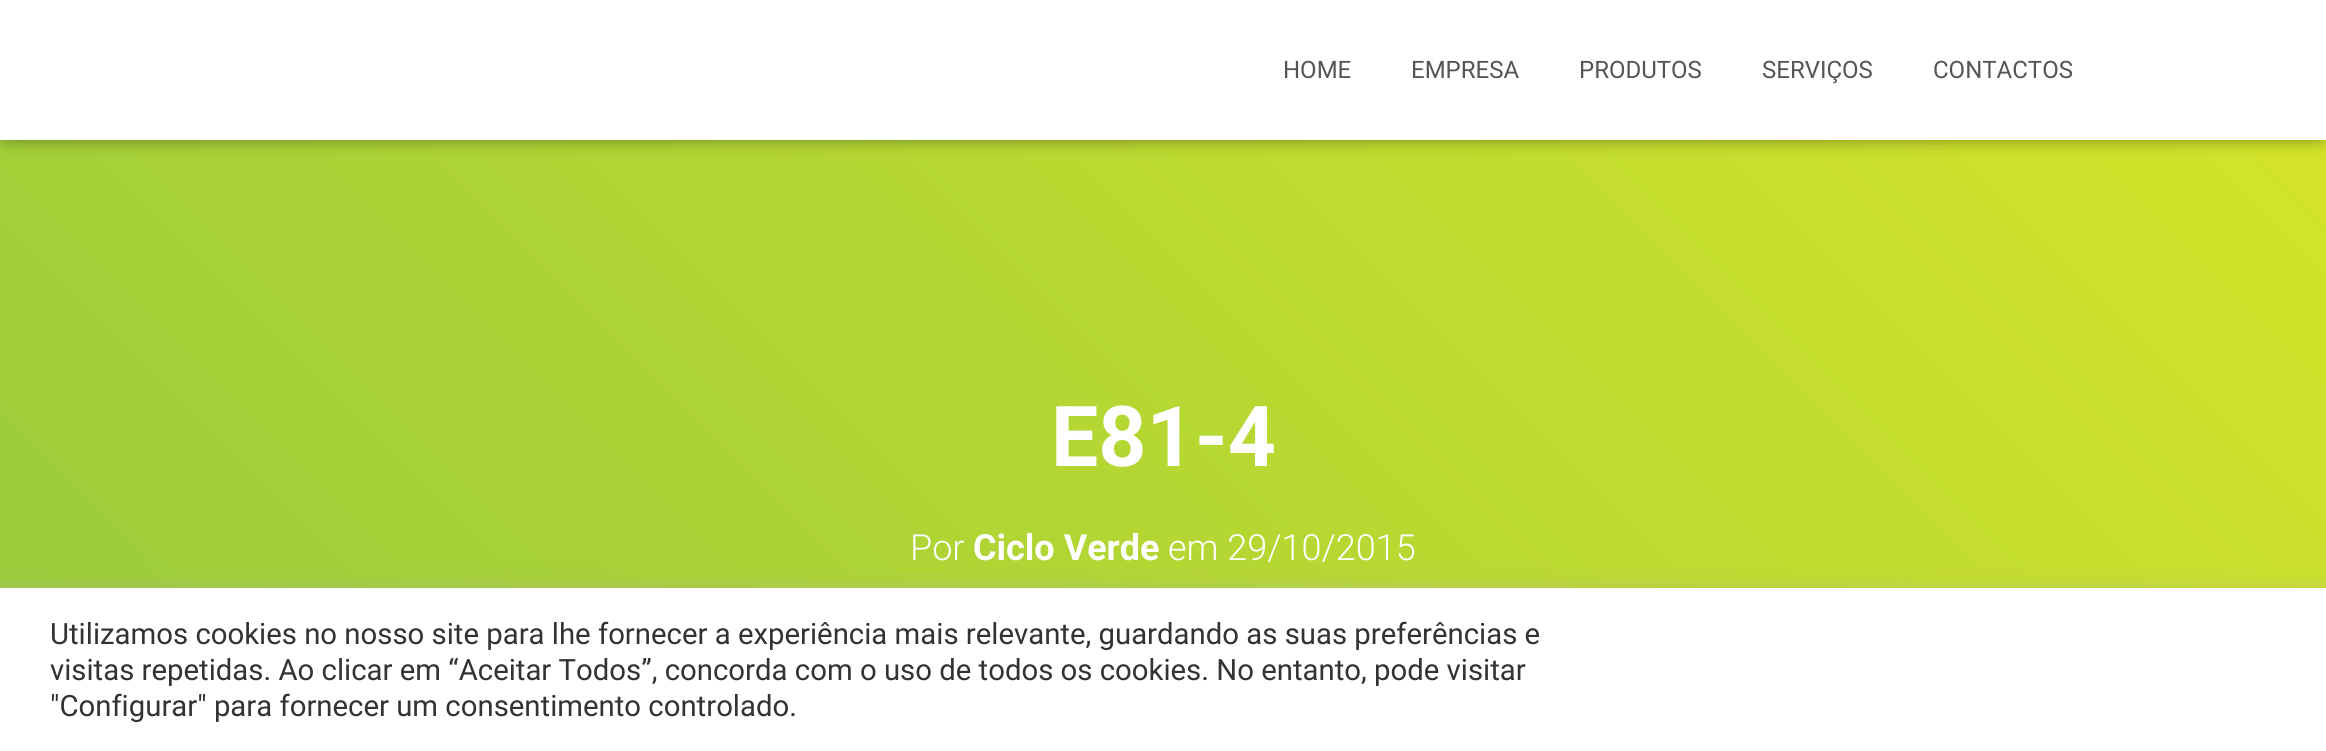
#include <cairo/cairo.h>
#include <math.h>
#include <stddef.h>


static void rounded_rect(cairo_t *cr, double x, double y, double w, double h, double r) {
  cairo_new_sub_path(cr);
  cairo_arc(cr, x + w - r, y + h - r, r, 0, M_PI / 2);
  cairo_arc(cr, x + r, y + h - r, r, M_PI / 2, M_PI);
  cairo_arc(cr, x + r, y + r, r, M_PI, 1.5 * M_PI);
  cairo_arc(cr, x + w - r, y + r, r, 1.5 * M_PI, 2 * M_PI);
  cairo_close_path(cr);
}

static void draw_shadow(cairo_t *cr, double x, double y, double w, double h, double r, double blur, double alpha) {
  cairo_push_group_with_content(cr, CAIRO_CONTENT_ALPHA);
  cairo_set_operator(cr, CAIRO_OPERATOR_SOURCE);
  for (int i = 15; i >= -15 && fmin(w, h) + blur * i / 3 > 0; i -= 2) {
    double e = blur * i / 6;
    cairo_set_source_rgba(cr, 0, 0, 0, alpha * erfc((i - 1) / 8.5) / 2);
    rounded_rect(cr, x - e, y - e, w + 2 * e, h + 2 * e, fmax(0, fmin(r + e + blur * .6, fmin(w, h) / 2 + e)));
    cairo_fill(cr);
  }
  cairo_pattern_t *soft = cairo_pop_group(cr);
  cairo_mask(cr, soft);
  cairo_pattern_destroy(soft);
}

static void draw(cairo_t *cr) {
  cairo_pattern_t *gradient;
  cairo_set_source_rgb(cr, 1, 1, 1);
  cairo_paint(cr);
  gradient = cairo_pattern_create_linear(348, 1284, 1979, -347);
  cairo_pattern_add_color_stop_rgba(gradient, 0, 148 / 255.0, 201 / 255.0, 61 / 255.0, 1);
  cairo_pattern_add_color_stop_rgba(gradient, 1, 214 / 255.0, 229 / 255.0, 40 / 255.0, 1);
  cairo_set_source(cr, gradient);
  cairo_pattern_destroy(gradient);
  cairo_rectangle(cr, 0, 140, 2326, 448);
  cairo_fill(cr);
  cairo_set_source_rgb(cr, 0, 0, 0);
  draw_shadow(cr, 4, 12, 2318, 132, 0, 5, 0.1);
  draw_shadow(cr, 0, 2, 2326, 140, 0, 10, 0.12);
  draw_shadow(cr, 12, 14, 2302, 116, 0, 10, 0.42);
  cairo_set_source_rgb(cr, 1, 1, 1);
  cairo_rectangle(cr, 0, 0, 2326, 140);
  cairo_fill(cr);
  cairo_set_source_rgb(cr, 172 / 255.0, 171 / 255.0, 171 / 255.0);
  draw_shadow(cr, 0, 586, 2326, 164, 0, 10, 0.3);
  cairo_set_source_rgb(cr, 1, 1, 1);
  cairo_rectangle(cr, 0, 588, 2326, 163);
  cairo_fill(cr);
  cairo_select_font_face(cr, "Roboto", CAIRO_FONT_SLANT_NORMAL, CAIRO_FONT_WEIGHT_NORMAL);
  cairo_set_font_size(cr, 24);
  cairo_set_source_rgb(cr, 85 / 255.0, 85 / 255.0, 85 / 255.0);
  cairo_move_to(cr, 1283, 78);
  cairo_show_text(cr, "HOME");
  cairo_move_to(cr, 1411, 78);
  cairo_show_text(cr, "EMPRESA");
  cairo_move_to(cr, 1579, 78);
  cairo_show_text(cr, "PRODUTOS");
  cairo_move_to(cr, 1762, 78);
  cairo_show_text(cr, "SERVIÇOS");
  cairo_move_to(cr, 1933, 78);
  cairo_show_text(cr, "CONTACTOS");
  cairo_select_font_face(cr, "Roboto", CAIRO_FONT_SLANT_NORMAL, CAIRO_FONT_WEIGHT_BOLD);
  cairo_set_font_size(cr, 84);
  cairo_set_source_rgb(cr, 1, 1, 1);
  cairo_move_to(cr, 1051, 466);
  cairo_show_text(cr, "E81-4");
  cairo_select_font_face(cr, "Roboto Light", CAIRO_FONT_SLANT_NORMAL, CAIRO_FONT_WEIGHT_NORMAL);
  cairo_set_font_size(cr, 36);
  cairo_move_to(cr, 910, 560);
  cairo_show_text(cr, "Por");
  cairo_select_font_face(cr, "Roboto", CAIRO_FONT_SLANT_NORMAL, CAIRO_FONT_WEIGHT_BOLD);
  cairo_move_to(cr, 973, 560);
  cairo_show_text(cr, "Ciclo Verde");
  cairo_select_font_face(cr, "Roboto Light", CAIRO_FONT_SLANT_NORMAL, CAIRO_FONT_WEIGHT_NORMAL);
  cairo_move_to(cr, 1168, 560);
  cairo_show_text(cr, "em 29/10/2015");
  cairo_select_font_face(cr, "Roboto", CAIRO_FONT_SLANT_NORMAL, CAIRO_FONT_WEIGHT_NORMAL);
  cairo_set_font_size(cr, 29.33);
  cairo_set_source_rgb(cr, 51 / 255.0, 51 / 255.0, 51 / 255.0);
  cairo_move_to(cr, 50, 644);
  cairo_show_text(cr, "Utilizamos cookies no nosso site para lhe fornecer a experiência mais relevante, guardando as suas preferências e");
  cairo_move_to(cr, 50, 680);
  cairo_show_text(cr, "visitas repetidas. Ao clicar em “Aceitar Todos”, concorda com o uso de todos os cookies. No entanto, pode visitar");
  cairo_move_to(cr, 50, 716);
  cairo_show_text(cr, "\"Configurar\" para fornecer um consentimento controlado.");
}

int main(void) {
  cairo_surface_t *surface = cairo_image_surface_create(CAIRO_FORMAT_RGB24, 2326, 751);
  cairo_t *cr = cairo_create(surface);
  cairo_font_options_t *options = cairo_font_options_create();
  cairo_font_options_set_hint_metrics(options, CAIRO_HINT_METRICS_OFF);
  cairo_font_options_set_hint_style(options, CAIRO_HINT_STYLE_NONE);
  cairo_set_font_options(cr, options);
  cairo_set_miter_limit(cr, 4);
  draw(cr);
  cairo_surface_write_to_png(surface, "out.png");
  cairo_font_options_destroy(options);
  cairo_destroy(cr);
  cairo_surface_destroy(surface);
  return 0;
}
